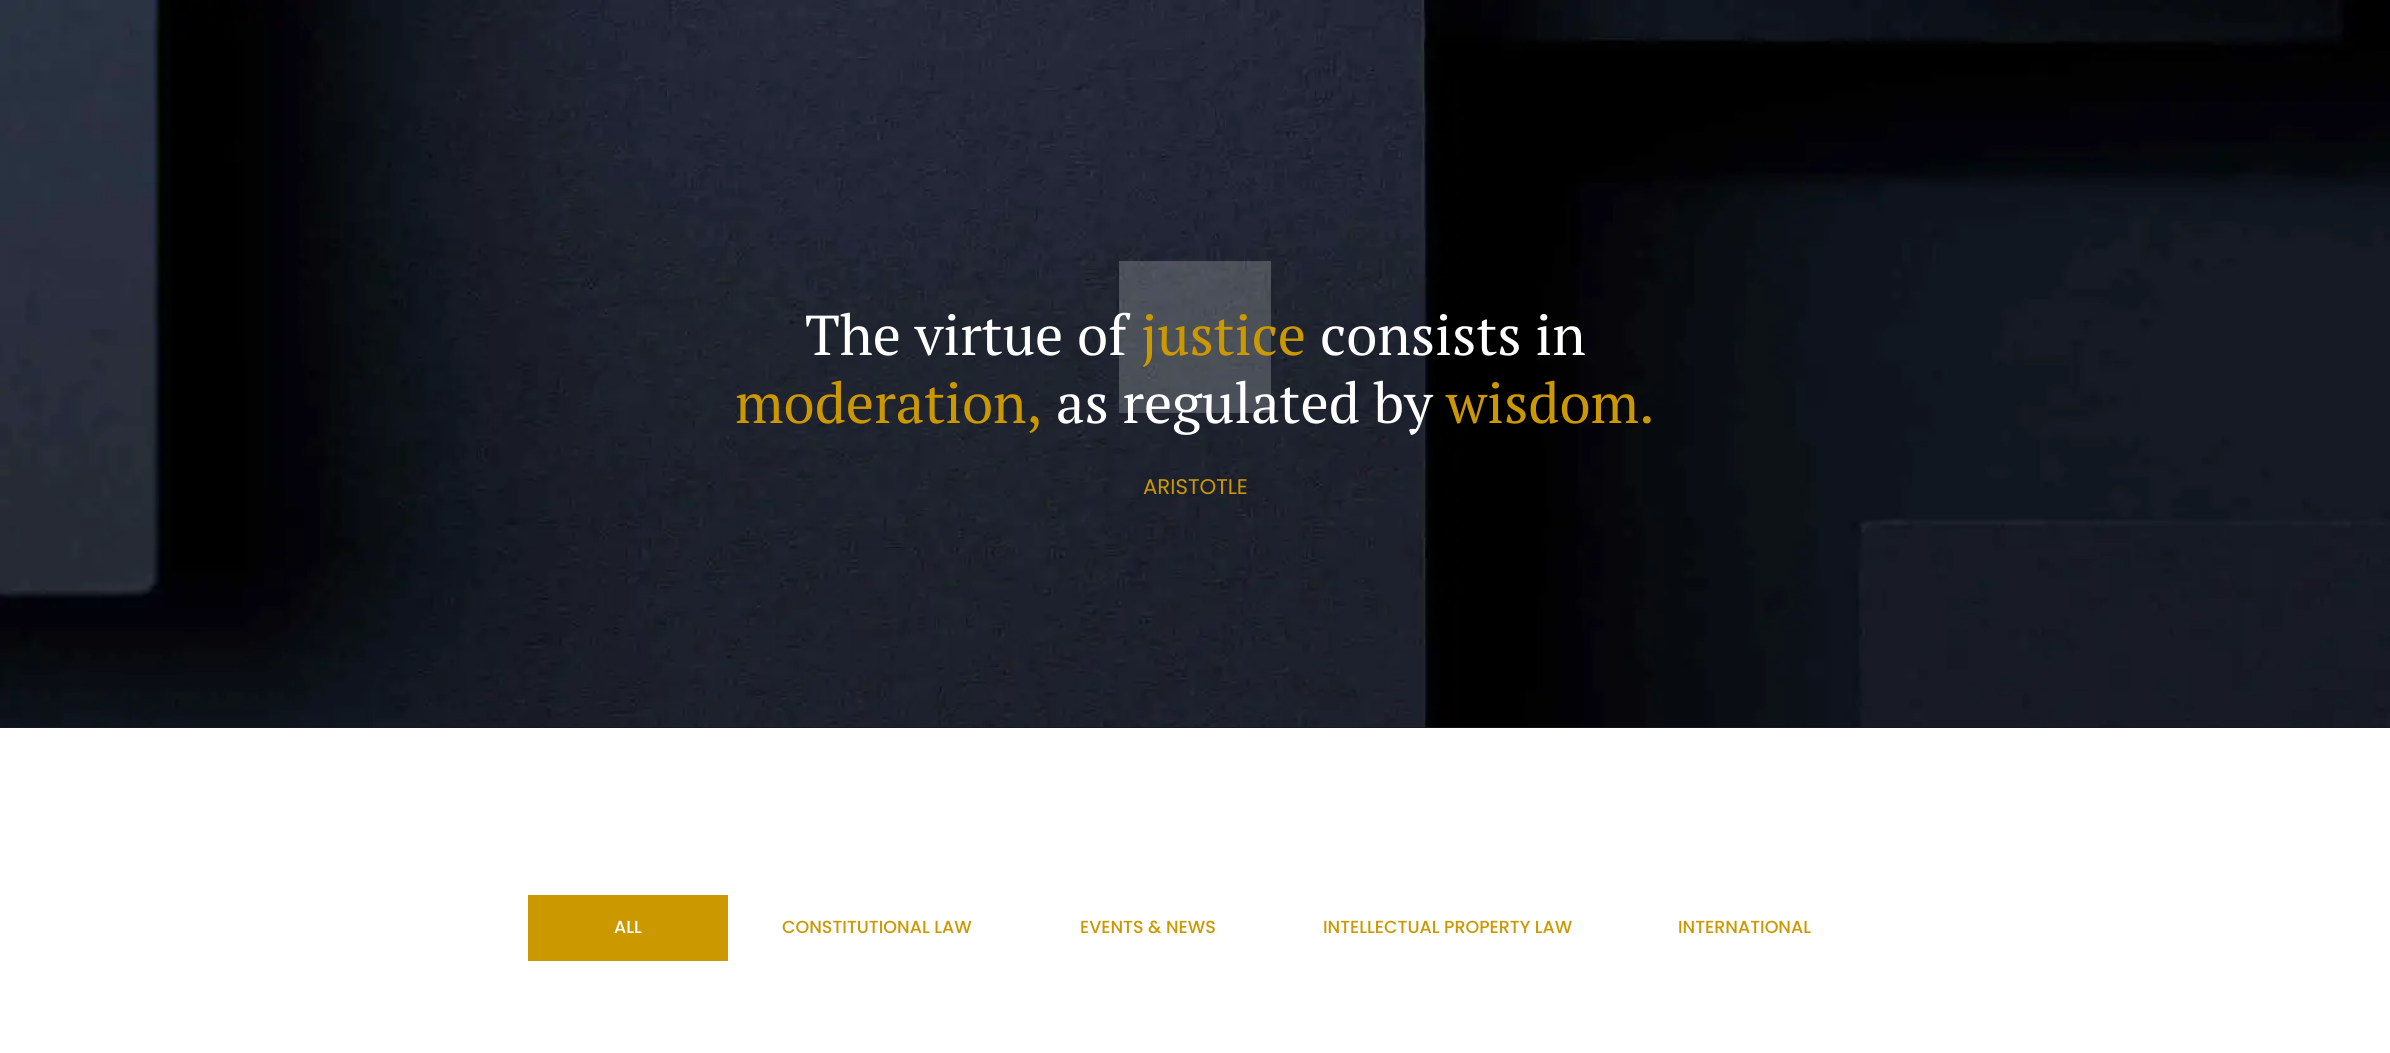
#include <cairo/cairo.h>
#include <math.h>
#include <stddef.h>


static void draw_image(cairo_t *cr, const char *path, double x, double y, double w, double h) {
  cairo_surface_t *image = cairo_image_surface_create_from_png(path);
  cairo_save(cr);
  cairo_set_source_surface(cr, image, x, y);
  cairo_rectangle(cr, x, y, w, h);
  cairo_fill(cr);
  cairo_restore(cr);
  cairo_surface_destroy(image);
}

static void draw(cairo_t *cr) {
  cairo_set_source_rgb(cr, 1, 1, 1);
  cairo_paint(cr);
  cairo_set_source_rgb(cr, 25 / 255.0, 25 / 255.0, 25 / 255.0);
  cairo_rectangle(cr, 0, 727, 2390, 1);
  cairo_fill(cr);
  draw_image(cr, "images/1.png", 0, 0, 2390, 728);
  cairo_set_source_rgba(cr, 1, 1, 1, 0.2);
  cairo_rectangle(cr, 1119, 261, 152, 152);
  cairo_fill(cr);
  cairo_set_source_rgb(cr, 203 / 255.0, 152 / 255.0, 0);
  cairo_rectangle(cr, 528, 895, 200, 66);
  cairo_fill(cr);
  cairo_select_font_face(cr, "PT Serif", CAIRO_FONT_SLANT_NORMAL, CAIRO_FONT_WEIGHT_NORMAL);
  cairo_set_font_size(cr, 56.25);
  cairo_set_source_rgb(cr, 1, 1, 1);
  cairo_move_to(cr, 805, 355);
  cairo_show_text(cr, "The virtue of");
  cairo_set_source_rgb(cr, 203 / 255.0, 152 / 255.0, 0);
  cairo_move_to(cr, 1141, 355);
  cairo_show_text(cr, "justice");
  cairo_set_source_rgb(cr, 1, 1, 1);
  cairo_move_to(cr, 1320, 355);
  cairo_show_text(cr, "consists in");
  cairo_set_source_rgb(cr, 203 / 255.0, 152 / 255.0, 0);
  cairo_move_to(cr, 735, 423);
  cairo_show_text(cr, "moderation,");
  cairo_set_source_rgb(cr, 1, 1, 1);
  cairo_move_to(cr, 1056, 423);
  cairo_show_text(cr, "as regulated by");
  cairo_set_source_rgb(cr, 203 / 255.0, 152 / 255.0, 0);
  cairo_move_to(cr, 1446, 423);
  cairo_show_text(cr, "wisdom.");
  cairo_select_font_face(cr, "Poppins", CAIRO_FONT_SLANT_NORMAL, CAIRO_FONT_WEIGHT_NORMAL);
  cairo_set_font_size(cr, 21.25);
  cairo_move_to(cr, 1143, 494);
  cairo_show_text(cr, "ARISTOTLE");
  cairo_select_font_face(cr, "Poppins Medium", CAIRO_FONT_SLANT_NORMAL, CAIRO_FONT_WEIGHT_NORMAL);
  cairo_set_font_size(cr, 17.5);
  cairo_set_source_rgb(cr, 1, 1, 1);
  cairo_move_to(cr, 614, 933);
  cairo_show_text(cr, "ALL");
  cairo_set_source_rgb(cr, 203 / 255.0, 152 / 255.0, 0);
  cairo_move_to(cr, 782, 933);
  cairo_show_text(cr, "CONSTITUTIONAL LAW");
  cairo_move_to(cr, 1080, 933);
  cairo_show_text(cr, "EVENTS & NEWS");
  cairo_move_to(cr, 1323, 933);
  cairo_show_text(cr, "INTELLECTUAL PROPERTY LAW");
  cairo_move_to(cr, 1678, 933);
  cairo_show_text(cr, "INTERNATIONAL");
}

int main(void) {
  cairo_surface_t *surface = cairo_image_surface_create(CAIRO_FORMAT_RGB24, 2390, 1053);
  cairo_t *cr = cairo_create(surface);
  cairo_font_options_t *options = cairo_font_options_create();
  cairo_font_options_set_hint_metrics(options, CAIRO_HINT_METRICS_OFF);
  cairo_font_options_set_hint_style(options, CAIRO_HINT_STYLE_NONE);
  cairo_set_font_options(cr, options);
  cairo_set_miter_limit(cr, 4);
  draw(cr);
  cairo_surface_write_to_png(surface, "out.png");
  cairo_font_options_destroy(options);
  cairo_destroy(cr);
  cairo_surface_destroy(surface);
  return 0;
}
